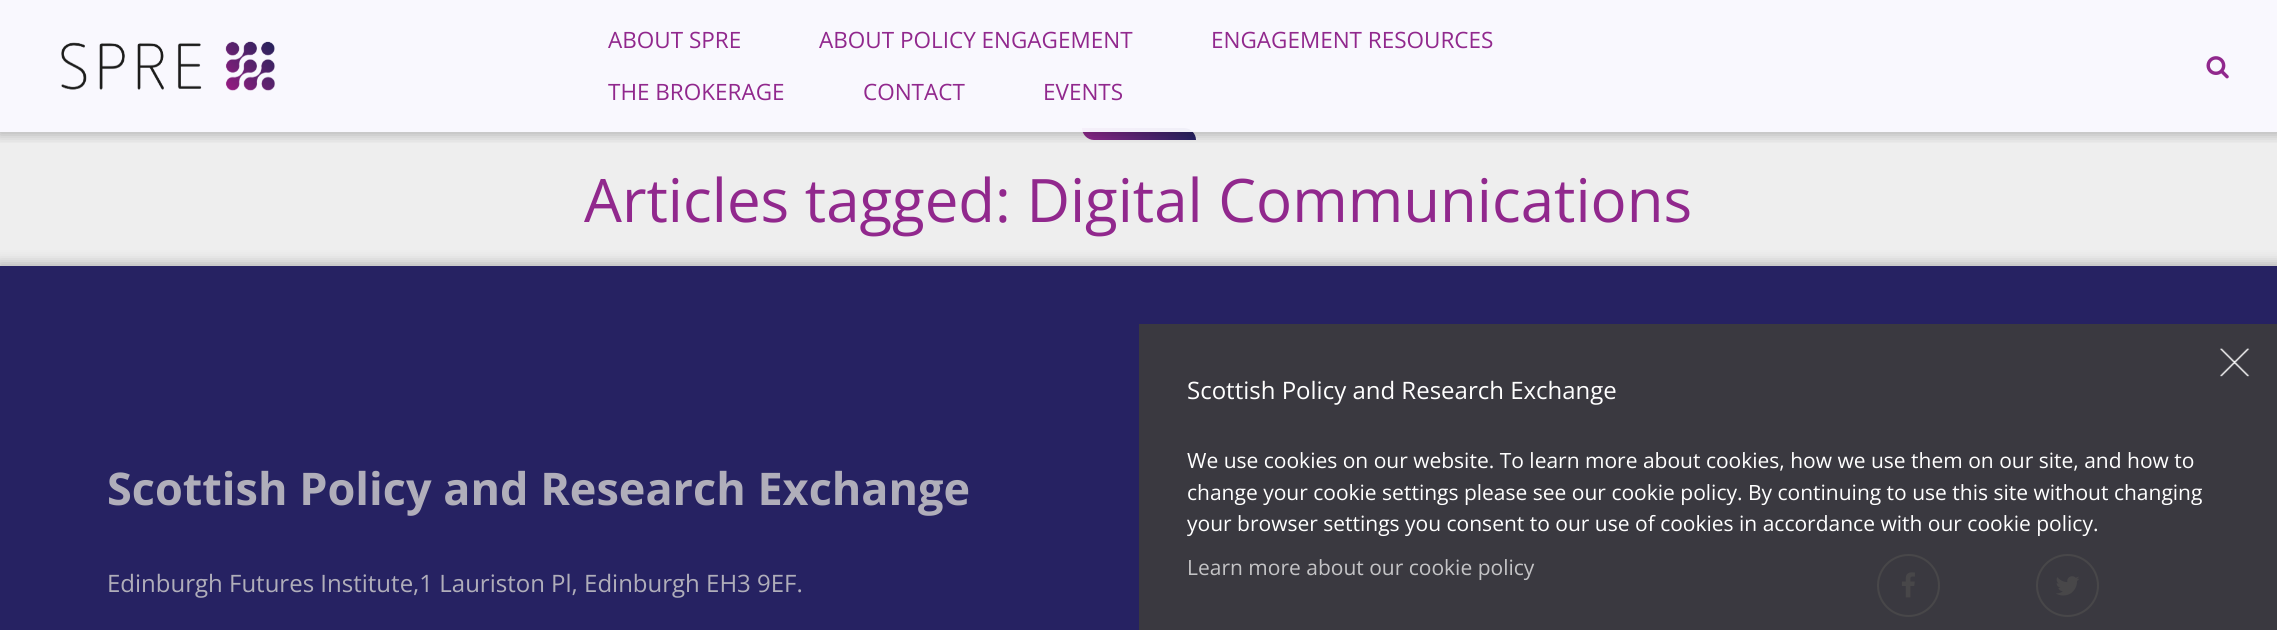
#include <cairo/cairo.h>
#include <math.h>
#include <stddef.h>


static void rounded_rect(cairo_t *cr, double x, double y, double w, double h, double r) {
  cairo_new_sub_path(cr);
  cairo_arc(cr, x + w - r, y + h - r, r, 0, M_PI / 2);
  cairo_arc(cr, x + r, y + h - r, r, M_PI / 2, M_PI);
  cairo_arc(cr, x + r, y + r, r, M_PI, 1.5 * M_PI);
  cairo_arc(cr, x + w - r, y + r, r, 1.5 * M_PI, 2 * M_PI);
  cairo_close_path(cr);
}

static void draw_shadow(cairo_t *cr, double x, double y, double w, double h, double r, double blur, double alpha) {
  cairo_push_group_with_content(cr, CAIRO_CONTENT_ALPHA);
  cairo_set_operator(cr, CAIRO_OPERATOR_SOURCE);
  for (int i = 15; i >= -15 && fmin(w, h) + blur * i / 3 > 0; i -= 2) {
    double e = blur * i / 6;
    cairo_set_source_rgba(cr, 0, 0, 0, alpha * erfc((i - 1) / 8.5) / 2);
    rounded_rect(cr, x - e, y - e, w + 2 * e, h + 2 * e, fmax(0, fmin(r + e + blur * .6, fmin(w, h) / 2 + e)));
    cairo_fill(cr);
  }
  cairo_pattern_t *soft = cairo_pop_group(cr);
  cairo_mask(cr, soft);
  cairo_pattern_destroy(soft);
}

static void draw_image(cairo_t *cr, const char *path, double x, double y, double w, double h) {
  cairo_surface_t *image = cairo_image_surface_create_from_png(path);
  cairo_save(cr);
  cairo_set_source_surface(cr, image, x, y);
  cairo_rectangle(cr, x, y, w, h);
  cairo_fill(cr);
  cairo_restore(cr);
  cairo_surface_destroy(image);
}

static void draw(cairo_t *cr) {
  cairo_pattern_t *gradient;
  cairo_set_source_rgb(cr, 238 / 255.0, 238 / 255.0, 238 / 255.0);
  cairo_paint(cr);
  gradient = cairo_pattern_create_linear(1082, 134, 1196, 134);
  cairo_pattern_add_color_stop_rgba(gradient, 0, 145 / 255.0, 40 / 255.0, 141 / 255.0, 1);
  cairo_pattern_add_color_stop_rgba(gradient, 1, 38 / 255.0, 34 / 255.0, 98 / 255.0, 1);
  cairo_set_source(cr, gradient);
  cairo_pattern_destroy(gradient);
  cairo_new_path(cr);
  cairo_move_to(cr, 1082, 128);
  cairo_line_to(cr, 1184, 128);
  cairo_curve_to(cr, 1190.5, 128, 1196, 133.5, 1196, 140);
  cairo_line_to(cr, 1094, 140);
  cairo_curve_to(cr, 1087.5, 140, 1082, 134.5, 1082, 128);
  cairo_close_path(cr);
  cairo_fill(cr);
  cairo_save(cr);
  cairo_rectangle(cr, 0, 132, 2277, 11);
  cairo_clip(cr);
  cairo_set_source_rgb(cr, 0, 0, 0);
  draw_shadow(cr, -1, 0, 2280, 135, 0, 6, 0.25);
  cairo_restore(cr);
  cairo_set_source_rgba(cr, 250 / 255.0, 249 / 255.0, 1, 0.95);
  cairo_rectangle(cr, 0, 0, 2277, 132);
  cairo_fill(cr);
  draw_image(cr, "images/1.png", 61, 41, 214, 50);
  draw_image(cr, "images/2.png", 2206, 56, 23, 23);
  cairo_set_source_rgb(cr, 0, 0, 0);
  draw_shadow(cr, -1, 263, 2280, 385, 0, 6, 0.25);
  cairo_set_source_rgb(cr, 38 / 255.0, 34 / 255.0, 98 / 255.0);
  cairo_rectangle(cr, 0, 266, 2277, 364);
  cairo_fill(cr);
  cairo_set_source_rgb(cr, 58 / 255.0, 57 / 255.0, 64 / 255.0);
  cairo_rectangle(cr, 1139, 324, 1138, 306);
  cairo_fill(cr);
  cairo_arc(cr, 1908.5, 585.5, 30.5, 0, 2 * M_PI);
  cairo_set_source_rgb(cr, 72 / 255.0, 71 / 255.0, 73 / 255.0);
  cairo_stroke(cr);
  draw_image(cr, "images/3.png", 1901, 572, 14, 26);
  cairo_arc(cr, 2067.5, 585.5, 30.5, 0, 2 * M_PI);
  cairo_stroke(cr);
  draw_image(cr, "images/4.png", 2056, 576, 24, 20);
  draw_image(cr, "images/5.png", 2220, 348, 30, 29);
  cairo_select_font_face(cr, "Open Sans", CAIRO_FONT_SLANT_NORMAL, CAIRO_FONT_WEIGHT_NORMAL);
  cairo_set_font_size(cr, 22.5);
  cairo_set_source_rgb(cr, 145 / 255.0, 40 / 255.0, 141 / 255.0);
  cairo_move_to(cr, 608, 48);
  cairo_show_text(cr, "ABOUT SPRE");
  cairo_move_to(cr, 819, 48);
  cairo_show_text(cr, "ABOUT POLICY ENGAGEMENT");
  cairo_move_to(cr, 1211, 48);
  cairo_show_text(cr, "ENGAGEMENT RESOURCES");
  cairo_move_to(cr, 608, 100);
  cairo_show_text(cr, "THE BROKERAGE");
  cairo_move_to(cr, 863, 100);
  cairo_show_text(cr, "CONTACT");
  cairo_move_to(cr, 1043, 100);
  cairo_show_text(cr, "EVENTS");
  cairo_set_font_size(cr, 60);
  cairo_move_to(cr, 584, 222);
  cairo_show_text(cr, "Articles tagged: Digital Communications");
  cairo_select_font_face(cr, "Open Sans", CAIRO_FONT_SLANT_NORMAL, CAIRO_FONT_WEIGHT_BOLD);
  cairo_set_font_size(cr, 45);
  cairo_set_source_rgb(cr, 176 / 255.0, 174 / 255.0, 186 / 255.0);
  cairo_move_to(cr, 107, 505);
  cairo_show_text(cr, "Scottish Policy and Research Exchange");
  cairo_select_font_face(cr, "Open Sans", CAIRO_FONT_SLANT_NORMAL, CAIRO_FONT_WEIGHT_NORMAL);
  cairo_set_font_size(cr, 24);
  cairo_move_to(cr, 107, 592);
  cairo_show_text(cr, "Edinburgh Futures Institute,1 Lauriston Pl, Edinburgh EH3 9EF.");
  cairo_set_source_rgb(cr, 1, 1, 1);
  cairo_move_to(cr, 1187, 399);
  cairo_show_text(cr, "Scottish Policy and Research Exchange");
  cairo_set_font_size(cr, 21);
  cairo_move_to(cr, 1187, 468);
  cairo_show_text(cr, "We use cookies on our website. To learn more about cookies, how we use them on our site, and how to");
  cairo_move_to(cr, 1187, 500);
  cairo_show_text(cr, "change your cookie settings please see our cookie policy. By continuing to use this site without changing");
  cairo_move_to(cr, 1187, 531);
  cairo_show_text(cr, "your browser settings you consent to our use of cookies in accordance with our cookie policy.");
  cairo_set_source_rgb(cr, 196 / 255.0, 196 / 255.0, 198 / 255.0);
  cairo_move_to(cr, 1187, 575);
  cairo_show_text(cr, "Learn more about our cookie policy");
}

int main(void) {
  cairo_surface_t *surface = cairo_image_surface_create(CAIRO_FORMAT_RGB24, 2277, 630);
  cairo_t *cr = cairo_create(surface);
  cairo_font_options_t *options = cairo_font_options_create();
  cairo_font_options_set_hint_metrics(options, CAIRO_HINT_METRICS_OFF);
  cairo_font_options_set_hint_style(options, CAIRO_HINT_STYLE_NONE);
  cairo_set_font_options(cr, options);
  cairo_set_miter_limit(cr, 4);
  draw(cr);
  cairo_surface_write_to_png(surface, "out.png");
  cairo_font_options_destroy(options);
  cairo_destroy(cr);
  cairo_surface_destroy(surface);
  return 0;
}
